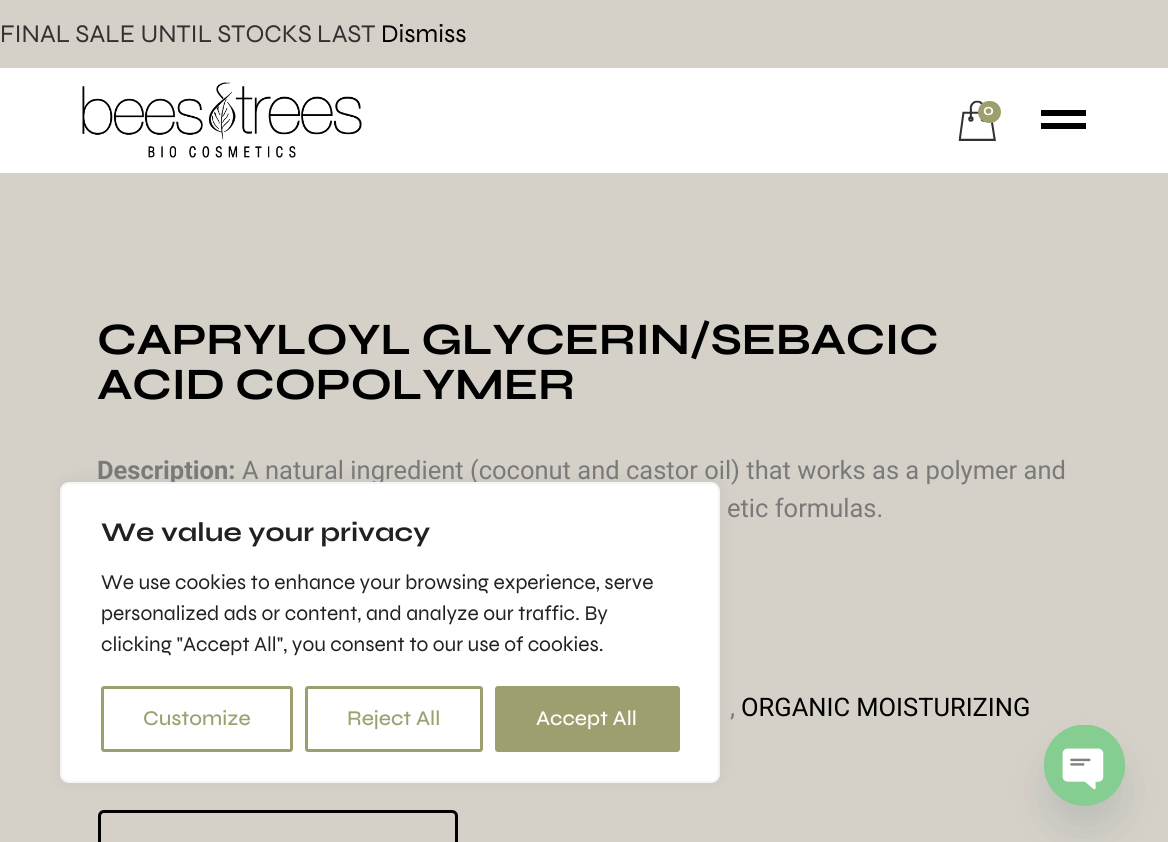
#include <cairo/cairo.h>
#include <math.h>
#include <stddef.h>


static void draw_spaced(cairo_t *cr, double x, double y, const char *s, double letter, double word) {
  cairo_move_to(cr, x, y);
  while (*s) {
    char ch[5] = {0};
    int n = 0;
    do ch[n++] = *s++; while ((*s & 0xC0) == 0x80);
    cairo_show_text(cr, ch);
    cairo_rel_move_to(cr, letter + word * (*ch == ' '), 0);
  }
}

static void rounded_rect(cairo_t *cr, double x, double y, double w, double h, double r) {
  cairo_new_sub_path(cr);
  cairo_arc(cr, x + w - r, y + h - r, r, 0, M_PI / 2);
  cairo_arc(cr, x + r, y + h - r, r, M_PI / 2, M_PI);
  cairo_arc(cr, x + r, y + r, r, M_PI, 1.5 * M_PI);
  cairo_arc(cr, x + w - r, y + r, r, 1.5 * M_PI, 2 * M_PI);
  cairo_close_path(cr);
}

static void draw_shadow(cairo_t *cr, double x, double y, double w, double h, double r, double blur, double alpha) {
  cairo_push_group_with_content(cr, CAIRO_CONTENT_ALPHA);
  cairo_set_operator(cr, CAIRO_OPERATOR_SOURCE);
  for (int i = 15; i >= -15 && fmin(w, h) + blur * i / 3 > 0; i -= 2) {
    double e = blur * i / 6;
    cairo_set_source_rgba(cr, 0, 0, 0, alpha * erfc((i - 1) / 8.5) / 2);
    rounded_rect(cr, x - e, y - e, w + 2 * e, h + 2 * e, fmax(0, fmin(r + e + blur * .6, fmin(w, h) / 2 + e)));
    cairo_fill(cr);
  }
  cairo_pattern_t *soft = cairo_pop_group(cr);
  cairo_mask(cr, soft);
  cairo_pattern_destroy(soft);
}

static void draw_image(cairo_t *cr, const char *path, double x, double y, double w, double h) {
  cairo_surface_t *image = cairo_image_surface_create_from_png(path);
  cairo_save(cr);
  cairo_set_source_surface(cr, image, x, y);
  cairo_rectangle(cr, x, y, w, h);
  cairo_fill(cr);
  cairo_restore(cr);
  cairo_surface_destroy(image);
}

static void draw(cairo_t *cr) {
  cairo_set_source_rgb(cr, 213 / 255.0, 209 / 255.0, 200 / 255.0);
  cairo_paint(cr);
  cairo_set_source_rgb(cr, 1, 1, 1);
  cairo_rectangle(cr, 0, 68, 1168, 105);
  cairo_fill(cr);
  draw_image(cr, "images/1.png", 82, 82, 280, 76);
  draw_image(cr, "images/2.png", 958, 100, 38, 41);
  cairo_set_source_rgb(cr, 157 / 255.0, 160 / 255.0, 110 / 255.0);
  rounded_rect(cr, 978, 101, 23, 22, 11);
  cairo_fill(cr);
  cairo_set_source_rgb(cr, 0, 0, 0);
  cairo_rectangle(cr, 1041, 110, 45, 6);
  cairo_fill(cr);
  cairo_rectangle(cr, 1041, 123, 45, 6);
  cairo_fill(cr);
  rounded_rect(cr, 99.5, 811.5, 357, 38, 4.5);
  cairo_set_line_width(cr, 3);
  cairo_stroke(cr);
  cairo_set_source_rgb(cr, 172 / 255.0, 171 / 255.0, 171 / 255.0);
  draw_shadow(cr, 60, 480, 660, 302, 9, 7.5, 0.3);
  cairo_set_source_rgb(cr, 73 / 255.0, 104 / 255.0, 126 / 255.0);
  draw_shadow(cr, 1044, 749, 81, 81, 40.5, 18, 0.16);
  cairo_set_source_rgb(cr, 134 / 255.0, 205 / 255.0, 145 / 255.0);
  cairo_arc(cr, 1084.5, 765.5, 40.5, 0, 2 * M_PI);
  cairo_fill(cr);
  draw_image(cr, "images/3.png", 1044, 725, 81, 65);
  cairo_select_font_face(cr, "Syne", CAIRO_FONT_SLANT_NORMAL, CAIRO_FONT_WEIGHT_NORMAL);
  cairo_set_font_size(cr, 25.5);
  cairo_set_source_rgb(cr, 49 / 255.0, 49 / 255.0, 49 / 255.0);
  cairo_move_to(cr, 0, 42);
  cairo_show_text(cr, "FINAL SALE UNTIL STOCKS LAST");
  cairo_set_source_rgb(cr, 0, 0, 0);
  cairo_move_to(cr, 381, 42);
  cairo_show_text(cr, "Dismiss");
  cairo_select_font_face(cr, "Syne SemiBold", CAIRO_FONT_SLANT_NORMAL, CAIRO_FONT_WEIGHT_NORMAL);
  cairo_set_font_size(cr, 16);
  cairo_set_source_rgb(cr, 1, 1, 1);
  draw_spaced(cr, 983, 115, "0", 2, 0);
  cairo_select_font_face(cr, "Syne", CAIRO_FONT_SLANT_NORMAL, CAIRO_FONT_WEIGHT_BOLD);
  cairo_set_font_size(cr, 45);
  cairo_set_source_rgb(cr, 0, 0, 0);
  draw_spaced(cr, 97, 354, "CAPRYLOYL GLYCERIN/SEBACIC", -0.45, 0);
  draw_spaced(cr, 97, 399, "ACID COPOLYMER", -0.45, 0);
  cairo_select_font_face(cr, "Roboto", CAIRO_FONT_SLANT_NORMAL, CAIRO_FONT_WEIGHT_BOLD);
  cairo_set_font_size(cr, 25.5);
  cairo_set_source_rgb(cr, 122 / 255.0, 122 / 255.0, 122 / 255.0);
  cairo_move_to(cr, 97, 479);
  cairo_show_text(cr, "Description:");
  cairo_select_font_face(cr, "Roboto", CAIRO_FONT_SLANT_NORMAL, CAIRO_FONT_WEIGHT_NORMAL);
  cairo_move_to(cr, 242, 479);
  cairo_show_text(cr, "A natural ingredient (coconut and castor oil) that works as a polymer and");
  cairo_move_to(cr, 727, 517);
  cairo_show_text(cr, "etic formulas.");
  cairo_move_to(cr, 730, 716);
  cairo_show_text(cr, ",");
  cairo_set_source_rgb(cr, 0, 0, 0);
  cairo_move_to(cr, 741, 716);
  cairo_show_text(cr, "ORGANIC MOISTURIZING");
  cairo_set_source_rgb(cr, 1, 1, 1);
  rounded_rect(cr, 61, 483, 658, 299, 8);
  cairo_fill_preserve(cr);
  cairo_set_source_rgb(cr, 244 / 255.0, 244 / 255.0, 244 / 255.0);
  cairo_set_line_width(cr, 2);
  cairo_stroke(cr);
  cairo_select_font_face(cr, "Syne", CAIRO_FONT_SLANT_NORMAL, CAIRO_FONT_WEIGHT_BOLD);
  cairo_set_font_size(cr, 27);
  cairo_set_source_rgb(cr, 33 / 255.0, 33 / 255.0, 33 / 255.0);
  cairo_move_to(cr, 101, 541);
  cairo_show_text(cr, "We value your privacy");
  cairo_select_font_face(cr, "Syne", CAIRO_FONT_SLANT_NORMAL, CAIRO_FONT_WEIGHT_NORMAL);
  cairo_set_font_size(cr, 21);
  cairo_move_to(cr, 101, 589);
  cairo_show_text(cr, "We use cookies to enhance your browsing experience, serve");
  cairo_move_to(cr, 101, 620);
  cairo_show_text(cr, "personalized ads or content, and analyze our traffic. By");
  cairo_move_to(cr, 101, 651);
  cairo_show_text(cr, "clicking \"Accept All\", you consent to our use of cookies.");
  rounded_rect(cr, 102.5, 687.5, 189, 63, 1.5);
  cairo_set_source_rgb(cr, 157 / 255.0, 160 / 255.0, 110 / 255.0);
  cairo_set_line_width(cr, 3);
  cairo_stroke(cr);
  cairo_select_font_face(cr, "Syne Medium", CAIRO_FONT_SLANT_NORMAL, CAIRO_FONT_WEIGHT_NORMAL);
  cairo_move_to(cr, 143, 725);
  cairo_show_text(cr, "Customize");
  rounded_rect(cr, 306.5, 687.5, 175, 63, 1.5);
  cairo_stroke(cr);
  cairo_move_to(cr, 347, 725);
  cairo_show_text(cr, "Reject All");
  rounded_rect(cr, 496.5, 687.5, 182, 63, 1.5);
  cairo_fill_preserve(cr);
  cairo_stroke(cr);
  cairo_set_source_rgb(cr, 1, 1, 1);
  cairo_move_to(cr, 536, 725);
  cairo_show_text(cr, "Accept All");
}

int main(void) {
  cairo_surface_t *surface = cairo_image_surface_create(CAIRO_FORMAT_RGB24, 1168, 842);
  cairo_t *cr = cairo_create(surface);
  cairo_font_options_t *options = cairo_font_options_create();
  cairo_font_options_set_hint_metrics(options, CAIRO_HINT_METRICS_OFF);
  cairo_font_options_set_hint_style(options, CAIRO_HINT_STYLE_NONE);
  cairo_set_font_options(cr, options);
  cairo_set_miter_limit(cr, 4);
  draw(cr);
  cairo_surface_write_to_png(surface, "out.png");
  cairo_font_options_destroy(options);
  cairo_destroy(cr);
  cairo_surface_destroy(surface);
  return 0;
}
